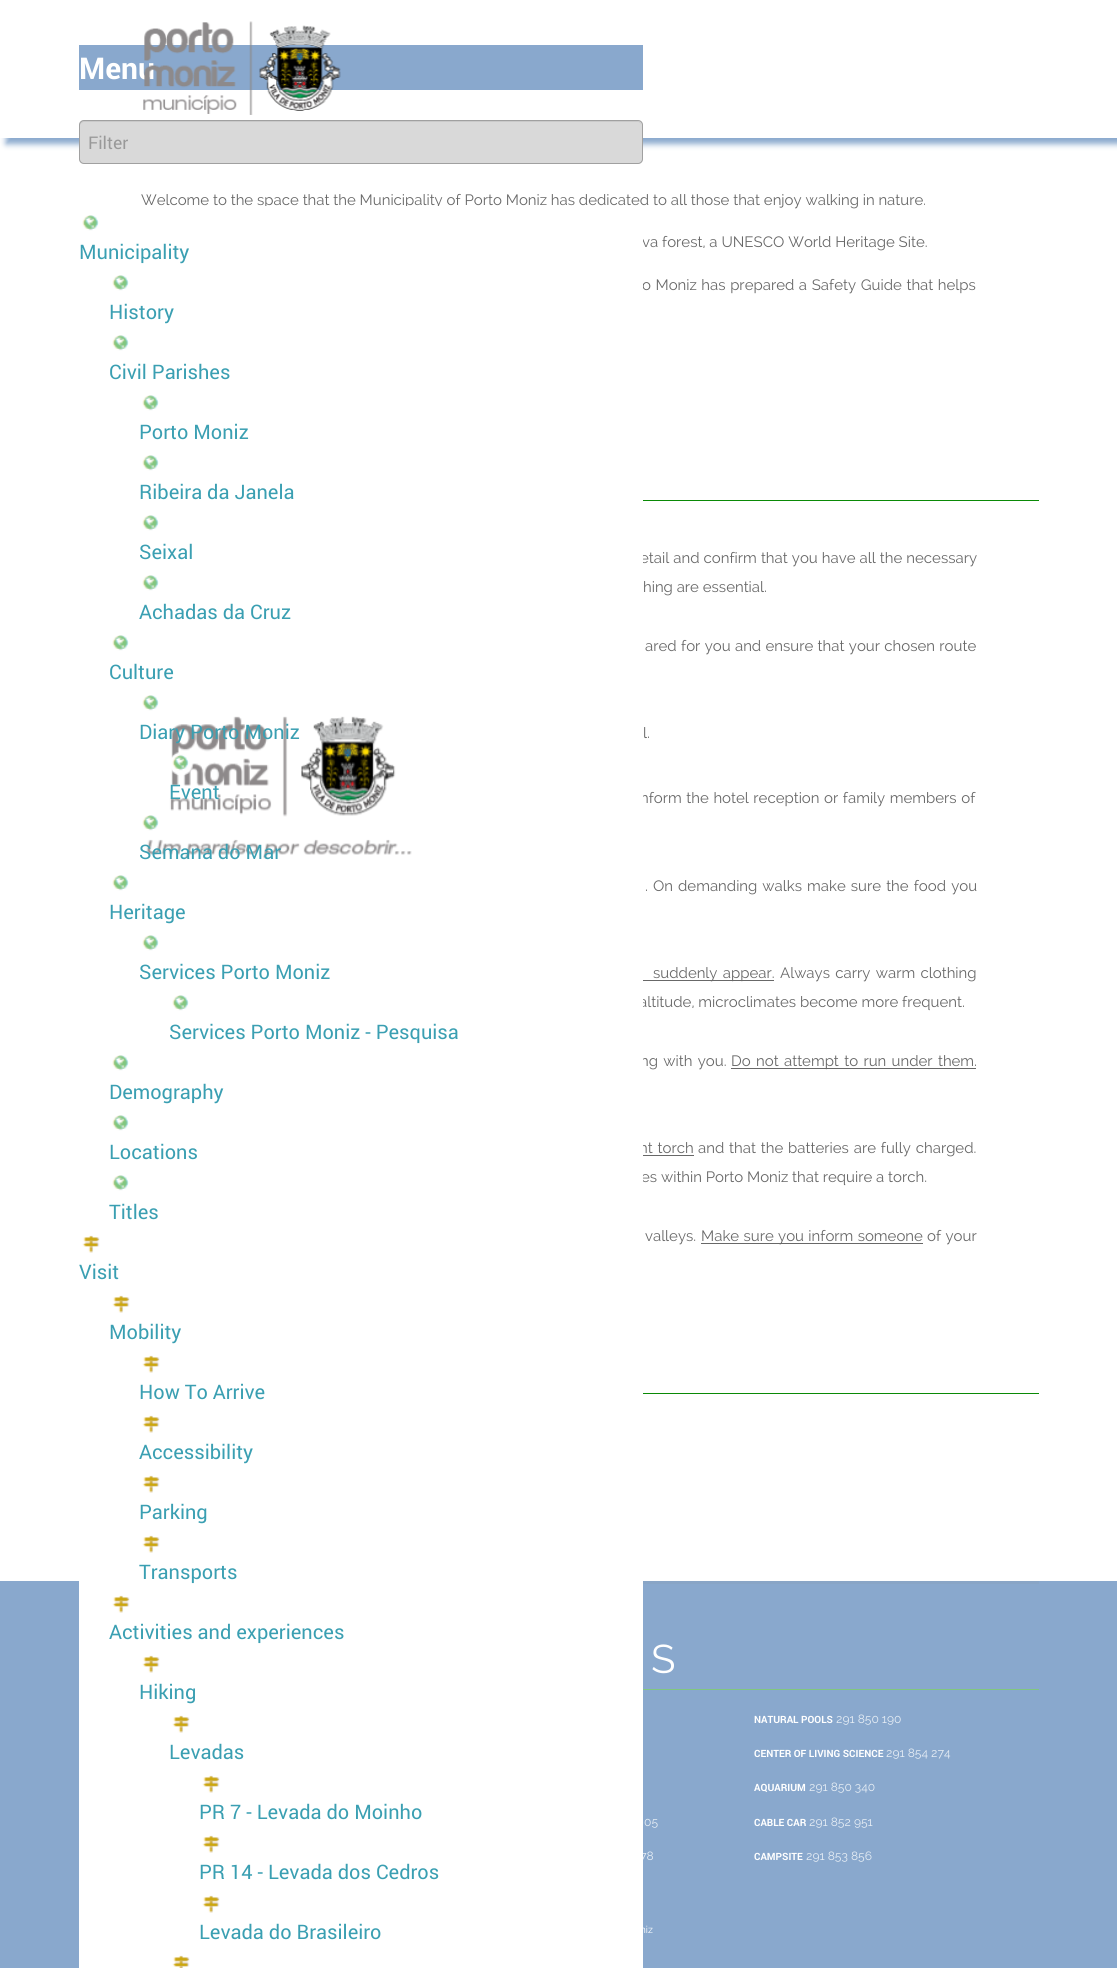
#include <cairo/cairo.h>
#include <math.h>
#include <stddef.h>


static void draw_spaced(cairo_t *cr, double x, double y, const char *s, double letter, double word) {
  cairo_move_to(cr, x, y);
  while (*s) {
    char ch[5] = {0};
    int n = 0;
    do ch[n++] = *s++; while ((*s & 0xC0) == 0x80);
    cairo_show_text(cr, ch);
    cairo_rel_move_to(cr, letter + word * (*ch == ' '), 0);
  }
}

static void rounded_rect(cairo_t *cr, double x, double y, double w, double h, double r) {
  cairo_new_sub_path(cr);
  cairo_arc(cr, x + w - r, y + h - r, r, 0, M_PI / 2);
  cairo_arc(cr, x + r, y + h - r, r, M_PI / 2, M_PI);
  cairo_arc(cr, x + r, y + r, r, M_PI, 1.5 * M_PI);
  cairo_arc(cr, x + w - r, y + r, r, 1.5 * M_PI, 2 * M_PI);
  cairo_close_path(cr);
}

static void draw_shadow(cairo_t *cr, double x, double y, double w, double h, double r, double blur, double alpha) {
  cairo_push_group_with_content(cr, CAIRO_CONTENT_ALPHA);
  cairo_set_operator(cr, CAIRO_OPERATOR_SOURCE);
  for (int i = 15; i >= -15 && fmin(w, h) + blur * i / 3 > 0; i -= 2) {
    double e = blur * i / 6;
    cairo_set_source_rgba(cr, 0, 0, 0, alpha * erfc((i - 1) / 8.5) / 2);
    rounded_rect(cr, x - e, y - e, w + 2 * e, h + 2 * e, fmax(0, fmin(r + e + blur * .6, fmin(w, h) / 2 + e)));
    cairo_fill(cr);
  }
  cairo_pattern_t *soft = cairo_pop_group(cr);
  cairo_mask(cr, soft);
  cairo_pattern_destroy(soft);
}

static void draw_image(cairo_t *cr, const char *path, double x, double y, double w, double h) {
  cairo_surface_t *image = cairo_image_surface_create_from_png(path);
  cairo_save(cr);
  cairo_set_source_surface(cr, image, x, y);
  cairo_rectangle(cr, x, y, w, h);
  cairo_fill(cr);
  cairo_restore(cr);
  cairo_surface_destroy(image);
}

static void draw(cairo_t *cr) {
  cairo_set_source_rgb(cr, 1, 1, 1);
  cairo_paint(cr);
  cairo_set_source_rgb(cr, 137 / 255.0, 168 / 255.0, 205 / 255.0);
  draw_shadow(cr, 6, 6, 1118, 138, 0, 3, 1);
  cairo_set_source_rgb(cr, 1, 1, 1);
  cairo_rectangle(cr, 0, 0, 1117, 138);
  cairo_fill(cr);
  cairo_set_source_rgb(cr, 137 / 255.0, 168 / 255.0, 205 / 255.0);
  cairo_rectangle(cr, 79, 45, 564, 45);
  cairo_fill(cr);
  cairo_set_source_rgb(cr, 217 / 255.0, 217 / 255.0, 217 / 255.0);
  rounded_rect(cr, 79, 120, 564, 44, 5);
  cairo_fill(cr);
  cairo_set_source_rgb(cr, 201 / 255.0, 201 / 255.0, 201 / 255.0);
  cairo_new_path(cr);
  cairo_move_to(cr, 84, 122);
  cairo_line_to(cr, 638, 122);
  cairo_curve_to(cr, 640, 122, 641, 124, 641, 126);
  cairo_curve_to(cr, 641, 123, 640, 121, 637, 121);
  cairo_line_to(cr, 84, 121);
  cairo_curve_to(cr, 81, 121, 80, 123, 80, 126);
  cairo_curve_to(cr, 80, 124, 82, 122, 84, 122);
  cairo_close_path(cr);
  cairo_fill(cr);
  rounded_rect(cr, 79.5, 120.5, 563, 43, 4.5);
  cairo_set_source_rgba(cr, 104 / 255.0, 104 / 255.0, 104 / 255.0, 0.5);
  cairo_set_line_width(cr, 1);
  cairo_stroke(cr);
  cairo_set_source_rgb(cr, 10 / 255.0, 138 / 255.0, 6 / 255.0);
  cairo_rectangle(cr, 643, 500, 396, 1);
  cairo_fill(cr);
  cairo_set_source_rgb(cr, 104 / 255.0, 104 / 255.0, 104 / 255.0);
  cairo_rectangle(cr, 643, 980, 131, 1);
  cairo_fill(cr);
  cairo_rectangle(cr, 731, 1068, 245, 1);
  cairo_fill(cr);
  cairo_rectangle(cr, 643, 1155, 51, 1);
  cairo_fill(cr);
  cairo_rectangle(cr, 701, 1243, 222, 1);
  cairo_fill(cr);
  cairo_set_source_rgb(cr, 10 / 255.0, 138 / 255.0, 6 / 255.0);
  cairo_rectangle(cr, 643, 1393, 396, 1);
  cairo_fill(cr);
  cairo_set_source_rgb(cr, 137 / 255.0, 168 / 255.0, 205 / 255.0);
  cairo_rectangle(cr, 0, 1581, 1117, 387);
  cairo_fill(cr);
  cairo_set_source_rgb(cr, 137 / 255.0, 165 / 255.0, 198 / 255.0);
  cairo_rectangle(cr, 643, 1581, 396, 3);
  cairo_fill(cr);
  cairo_set_source_rgb(cr, 129 / 255.0, 199 / 255.0, 127 / 255.0);
  cairo_rectangle(cr, 643, 1689, 396, 1);
  cairo_fill(cr);
  cairo_select_font_face(cr, "roboto", CAIRO_FONT_SLANT_NORMAL, CAIRO_FONT_WEIGHT_BOLD);
  cairo_set_font_size(cr, 30);
  cairo_set_source_rgb(cr, 1, 1, 1);
  cairo_move_to(cr, 79, 79);
  cairo_show_text(cr, "Menu");
  draw_image(cr, "images/1.png", 143, 21, 198, 94);
  cairo_select_font_face(cr, "roboto", CAIRO_FONT_SLANT_NORMAL, CAIRO_FONT_WEIGHT_NORMAL);
  cairo_set_font_size(cr, 17.5);
  cairo_set_source_rgb(cr, 153 / 255.0, 153 / 255.0, 153 / 255.0);
  cairo_move_to(cr, 88, 149);
  cairo_show_text(cr, "Filter");
  cairo_select_font_face(cr, "Raleway", CAIRO_FONT_SLANT_NORMAL, CAIRO_FONT_WEIGHT_NORMAL);
  cairo_set_font_size(cr, 15);
  cairo_set_source_rgb(cr, 104 / 255.0, 104 / 255.0, 104 / 255.0);
  cairo_move_to(cr, 141, 205);
  cairo_show_text(cr, "Welcome to the space that the Municipality of Porto Moniz has dedicated to all those that enjoy walking in nature.");
  cairo_move_to(cr, 642, 247);
  cairo_show_text(cr, "va forest, a UNESCO World Heritage Site.");
  draw_spaced(cr, 642, 290, "o Moniz has prepared a Safety Guide that helps", 0, 0.75);
  draw_spaced(cr, 640, 563, "etail and confirm that you have all the necessary", 0, 0.25);
  cairo_move_to(cr, 643, 592);
  cairo_show_text(cr, "hing are essential.");
  draw_spaced(cr, 645, 651, "ared for you and ensure that your chosen route", 0, 0.5);
  cairo_move_to(cr, 643, 738);
  cairo_show_text(cr, "l.");
  draw_spaced(cr, 640, 803, "nform the hotel reception or family members of", 0, 0.75);
  draw_spaced(cr, 645, 891, ". On demanding walks make sure the food you", 0, 1.25);
  draw_spaced(cr, 653, 978, "suddenly appear.", 0, 1.5);
  draw_spaced(cr, 780, 978, "Always carry warm clothing", 0, 1.5);
  cairo_move_to(cr, 639, 1007);
  cairo_show_text(cr, "altitude, microclimates become more frequent.");
  draw_spaced(cr, 640, 1066, "ng with you.", 0, 1.5);
  draw_spaced(cr, 731, 1066, "Do not attempt to run under them.", 0, 1.5);
  draw_spaced(cr, 639, 1153, "nt torch", 0, 1);
  draw_spaced(cr, 698, 1153, "and that the batteries are fully charged.", 0, 1);
  cairo_move_to(cr, 641, 1182);
  cairo_show_text(cr, "es within Porto Moniz that require a torch.");
  draw_spaced(cr, 645, 1241, "valleys.", 0, 0.5);
  draw_spaced(cr, 701, 1241, "Make sure you inform someone", 0, 0.5);
  draw_spaced(cr, 927, 1241, "of your", 0, 0.5);
  cairo_set_font_size(cr, 40);
  cairo_set_source_rgb(cr, 1, 1, 1);
  cairo_move_to(cr, 651, 1673);
  cairo_show_text(cr, "S");
  cairo_select_font_face(cr, "roboto", CAIRO_FONT_SLANT_NORMAL, CAIRO_FONT_WEIGHT_BOLD);
  cairo_set_font_size(cr, 10);
  cairo_move_to(cr, 754, 1723);
  cairo_show_text(cr, "NATURAL POOLS");
  cairo_select_font_face(cr, "Raleway", CAIRO_FONT_SLANT_NORMAL, CAIRO_FONT_WEIGHT_NORMAL);
  cairo_set_font_size(cr, 12);
  cairo_set_source_rgb(cr, 231 / 255.0, 238 / 255.0, 245 / 255.0);
  cairo_move_to(cr, 836, 1723);
  cairo_show_text(cr, "291 850 190");
  cairo_select_font_face(cr, "roboto", CAIRO_FONT_SLANT_NORMAL, CAIRO_FONT_WEIGHT_BOLD);
  cairo_set_font_size(cr, 10);
  cairo_set_source_rgb(cr, 1, 1, 1);
  cairo_move_to(cr, 754, 1757);
  cairo_show_text(cr, "CENTER OF LIVING SCIENCE");
  cairo_select_font_face(cr, "Raleway", CAIRO_FONT_SLANT_NORMAL, CAIRO_FONT_WEIGHT_NORMAL);
  cairo_set_font_size(cr, 12);
  cairo_set_source_rgb(cr, 231 / 255.0, 238 / 255.0, 245 / 255.0);
  cairo_move_to(cr, 886, 1757);
  cairo_show_text(cr, "291 854 274");
  cairo_select_font_face(cr, "roboto", CAIRO_FONT_SLANT_NORMAL, CAIRO_FONT_WEIGHT_BOLD);
  cairo_set_font_size(cr, 10);
  cairo_set_source_rgb(cr, 1, 1, 1);
  cairo_move_to(cr, 754, 1791);
  cairo_show_text(cr, "AQUARIUM");
  cairo_select_font_face(cr, "Raleway", CAIRO_FONT_SLANT_NORMAL, CAIRO_FONT_WEIGHT_NORMAL);
  cairo_set_font_size(cr, 12);
  cairo_set_source_rgb(cr, 231 / 255.0, 238 / 255.0, 245 / 255.0);
  cairo_move_to(cr, 809, 1791);
  cairo_show_text(cr, "291 850 340");
  cairo_move_to(cr, 644, 1826);
  cairo_show_text(cr, "05");
  cairo_select_font_face(cr, "roboto", CAIRO_FONT_SLANT_NORMAL, CAIRO_FONT_WEIGHT_BOLD);
  cairo_set_font_size(cr, 10);
  cairo_set_source_rgb(cr, 1, 1, 1);
  cairo_move_to(cr, 754, 1826);
  cairo_show_text(cr, "CABLE CAR");
  cairo_select_font_face(cr, "Raleway", CAIRO_FONT_SLANT_NORMAL, CAIRO_FONT_WEIGHT_NORMAL);
  cairo_set_font_size(cr, 12);
  cairo_set_source_rgb(cr, 231 / 255.0, 238 / 255.0, 245 / 255.0);
  cairo_move_to(cr, 809, 1826);
  cairo_show_text(cr, "291 852 951");
  cairo_move_to(cr, 640, 1860);
  cairo_show_text(cr, "78");
  cairo_set_source_rgb(cr, 1, 1, 1);
  cairo_rectangle(cr, 79, 206, 564, 1762);
  cairo_fill(cr);
  draw_image(cr, "images/8.png", 172, 1955, 18, 13);
  cairo_select_font_face(cr, "roboto", CAIRO_FONT_SLANT_NORMAL, CAIRO_FONT_WEIGHT_NORMAL);
  cairo_set_font_size(cr, 20);
  cairo_set_source_rgb(cr, 58 / 255.0, 159 / 255.0, 178 / 255.0);
  cairo_move_to(cr, 199, 1939);
  cairo_show_text(cr, "Levada do Brasileiro");
  draw_image(cr, "images/6.png", 202, 1895, 18, 18);
  cairo_move_to(cr, 199, 1879);
  cairo_show_text(cr, "PR 14 - Levada dos Cedros");
  draw_image(cr, "images/6.png", 202, 1835, 18, 18);
  cairo_move_to(cr, 199, 1819);
  cairo_show_text(cr, "PR 7 - Levada do Moinho");
  draw_image(cr, "images/6.png", 202, 1775, 18, 18);
  cairo_move_to(cr, 169, 1759);
  cairo_show_text(cr, "Levadas");
  draw_image(cr, "images/6.png", 172, 1715, 18, 18);
  cairo_move_to(cr, 139, 1699);
  cairo_show_text(cr, "Hiking");
  draw_image(cr, "images/6.png", 142, 1655, 18, 18);
  cairo_move_to(cr, 109, 1639);
  cairo_show_text(cr, "Activities and experiences");
  draw_image(cr, "images/7.png", 112, 1595, 18, 18);
  cairo_move_to(cr, 139, 1579);
  cairo_show_text(cr, "Transports");
  draw_image(cr, "images/6.png", 142, 1535, 18, 18);
  cairo_move_to(cr, 139, 1519);
  cairo_show_text(cr, "Parking");
  draw_image(cr, "images/6.png", 142, 1475, 18, 18);
  cairo_move_to(cr, 139, 1459);
  cairo_show_text(cr, "Accessibility");
  draw_image(cr, "images/6.png", 142, 1415, 18, 18);
  cairo_move_to(cr, 139, 1399);
  cairo_show_text(cr, "How To Arrive");
  draw_image(cr, "images/6.png", 142, 1355, 18, 18);
  cairo_move_to(cr, 109, 1339);
  cairo_show_text(cr, "Mobility");
  draw_image(cr, "images/7.png", 112, 1295, 18, 18);
  cairo_move_to(cr, 79, 1279);
  cairo_show_text(cr, "Visit");
  draw_image(cr, "images/6.png", 82, 1235, 18, 18);
  cairo_move_to(cr, 109, 1219);
  cairo_show_text(cr, "Titles");
  draw_image(cr, "images/4.png", 112, 1175, 17, 16);
  cairo_move_to(cr, 109, 1159);
  cairo_show_text(cr, "Locations");
  draw_image(cr, "images/4.png", 112, 1115, 17, 16);
  cairo_move_to(cr, 109, 1099);
  cairo_show_text(cr, "Demography");
  draw_image(cr, "images/4.png", 112, 1055, 17, 16);
  cairo_move_to(cr, 169, 1039);
  cairo_show_text(cr, "Services Porto Moniz - Pesquisa");
  draw_image(cr, "images/3.png", 172, 995, 17, 16);
  cairo_move_to(cr, 139, 979);
  cairo_show_text(cr, "Services Porto Moniz");
  draw_image(cr, "images/3.png", 142, 935, 17, 16);
  cairo_move_to(cr, 109, 919);
  cairo_show_text(cr, "Heritage");
  draw_image(cr, "images/4.png", 112, 875, 17, 16);
  draw_image(cr, "images/2.png", 146, 716, 266, 143);
  cairo_move_to(cr, 139, 859);
  cairo_show_text(cr, "Semana do Mar");
  draw_image(cr, "images/3.png", 142, 815, 17, 16);
  cairo_move_to(cr, 169, 799);
  cairo_show_text(cr, "Event");
  draw_image(cr, "images/5.png", 171, 752, 23, 24);
  cairo_move_to(cr, 139, 739);
  cairo_show_text(cr, "Diary Porto Moniz");
  draw_image(cr, "images/3.png", 142, 695, 17, 16);
  cairo_move_to(cr, 109, 679);
  cairo_show_text(cr, "Culture");
  draw_image(cr, "images/4.png", 112, 635, 17, 16);
  cairo_move_to(cr, 139, 619);
  cairo_show_text(cr, "Achadas da Cruz");
  draw_image(cr, "images/3.png", 142, 575, 17, 16);
  cairo_move_to(cr, 139, 559);
  cairo_show_text(cr, "Seixal");
  draw_image(cr, "images/3.png", 142, 515, 17, 16);
  cairo_move_to(cr, 139, 499);
  cairo_show_text(cr, "Ribeira da Janela");
  draw_image(cr, "images/3.png", 142, 455, 17, 16);
  cairo_move_to(cr, 139, 439);
  cairo_show_text(cr, "Porto Moniz");
  draw_image(cr, "images/3.png", 142, 395, 17, 16);
  cairo_move_to(cr, 109, 379);
  cairo_show_text(cr, "Civil Parishes");
  draw_image(cr, "images/4.png", 112, 335, 17, 16);
  cairo_move_to(cr, 109, 319);
  cairo_show_text(cr, "History");
  draw_image(cr, "images/4.png", 112, 275, 17, 16);
  cairo_move_to(cr, 79, 259);
  cairo_show_text(cr, "Municipality");
  draw_image(cr, "images/3.png", 82, 215, 17, 16);
  cairo_select_font_face(cr, "roboto", CAIRO_FONT_SLANT_NORMAL, CAIRO_FONT_WEIGHT_BOLD);
  cairo_set_font_size(cr, 10);
  cairo_set_source_rgb(cr, 1, 1, 1);
  cairo_move_to(cr, 754, 1860);
  cairo_show_text(cr, "CAMPSITE");
  cairo_select_font_face(cr, "Raleway", CAIRO_FONT_SLANT_NORMAL, CAIRO_FONT_WEIGHT_NORMAL);
  cairo_set_font_size(cr, 12);
  cairo_set_source_rgb(cr, 231 / 255.0, 238 / 255.0, 245 / 255.0);
  cairo_move_to(cr, 806, 1860);
  cairo_show_text(cr, "291 853 856");
  cairo_set_font_size(cr, 10);
  cairo_set_source_rgb(cr, 1, 1, 1);
  cairo_move_to(cr, 640, 1933);
  cairo_show_text(cr, "niz");
}

int main(void) {
  cairo_surface_t *surface = cairo_image_surface_create(CAIRO_FORMAT_RGB24, 1117, 1968);
  cairo_t *cr = cairo_create(surface);
  cairo_font_options_t *options = cairo_font_options_create();
  cairo_font_options_set_hint_metrics(options, CAIRO_HINT_METRICS_OFF);
  cairo_font_options_set_hint_style(options, CAIRO_HINT_STYLE_NONE);
  cairo_set_font_options(cr, options);
  cairo_set_miter_limit(cr, 4);
  draw(cr);
  cairo_surface_write_to_png(surface, "out.png");
  cairo_font_options_destroy(options);
  cairo_destroy(cr);
  cairo_surface_destroy(surface);
  return 0;
}
